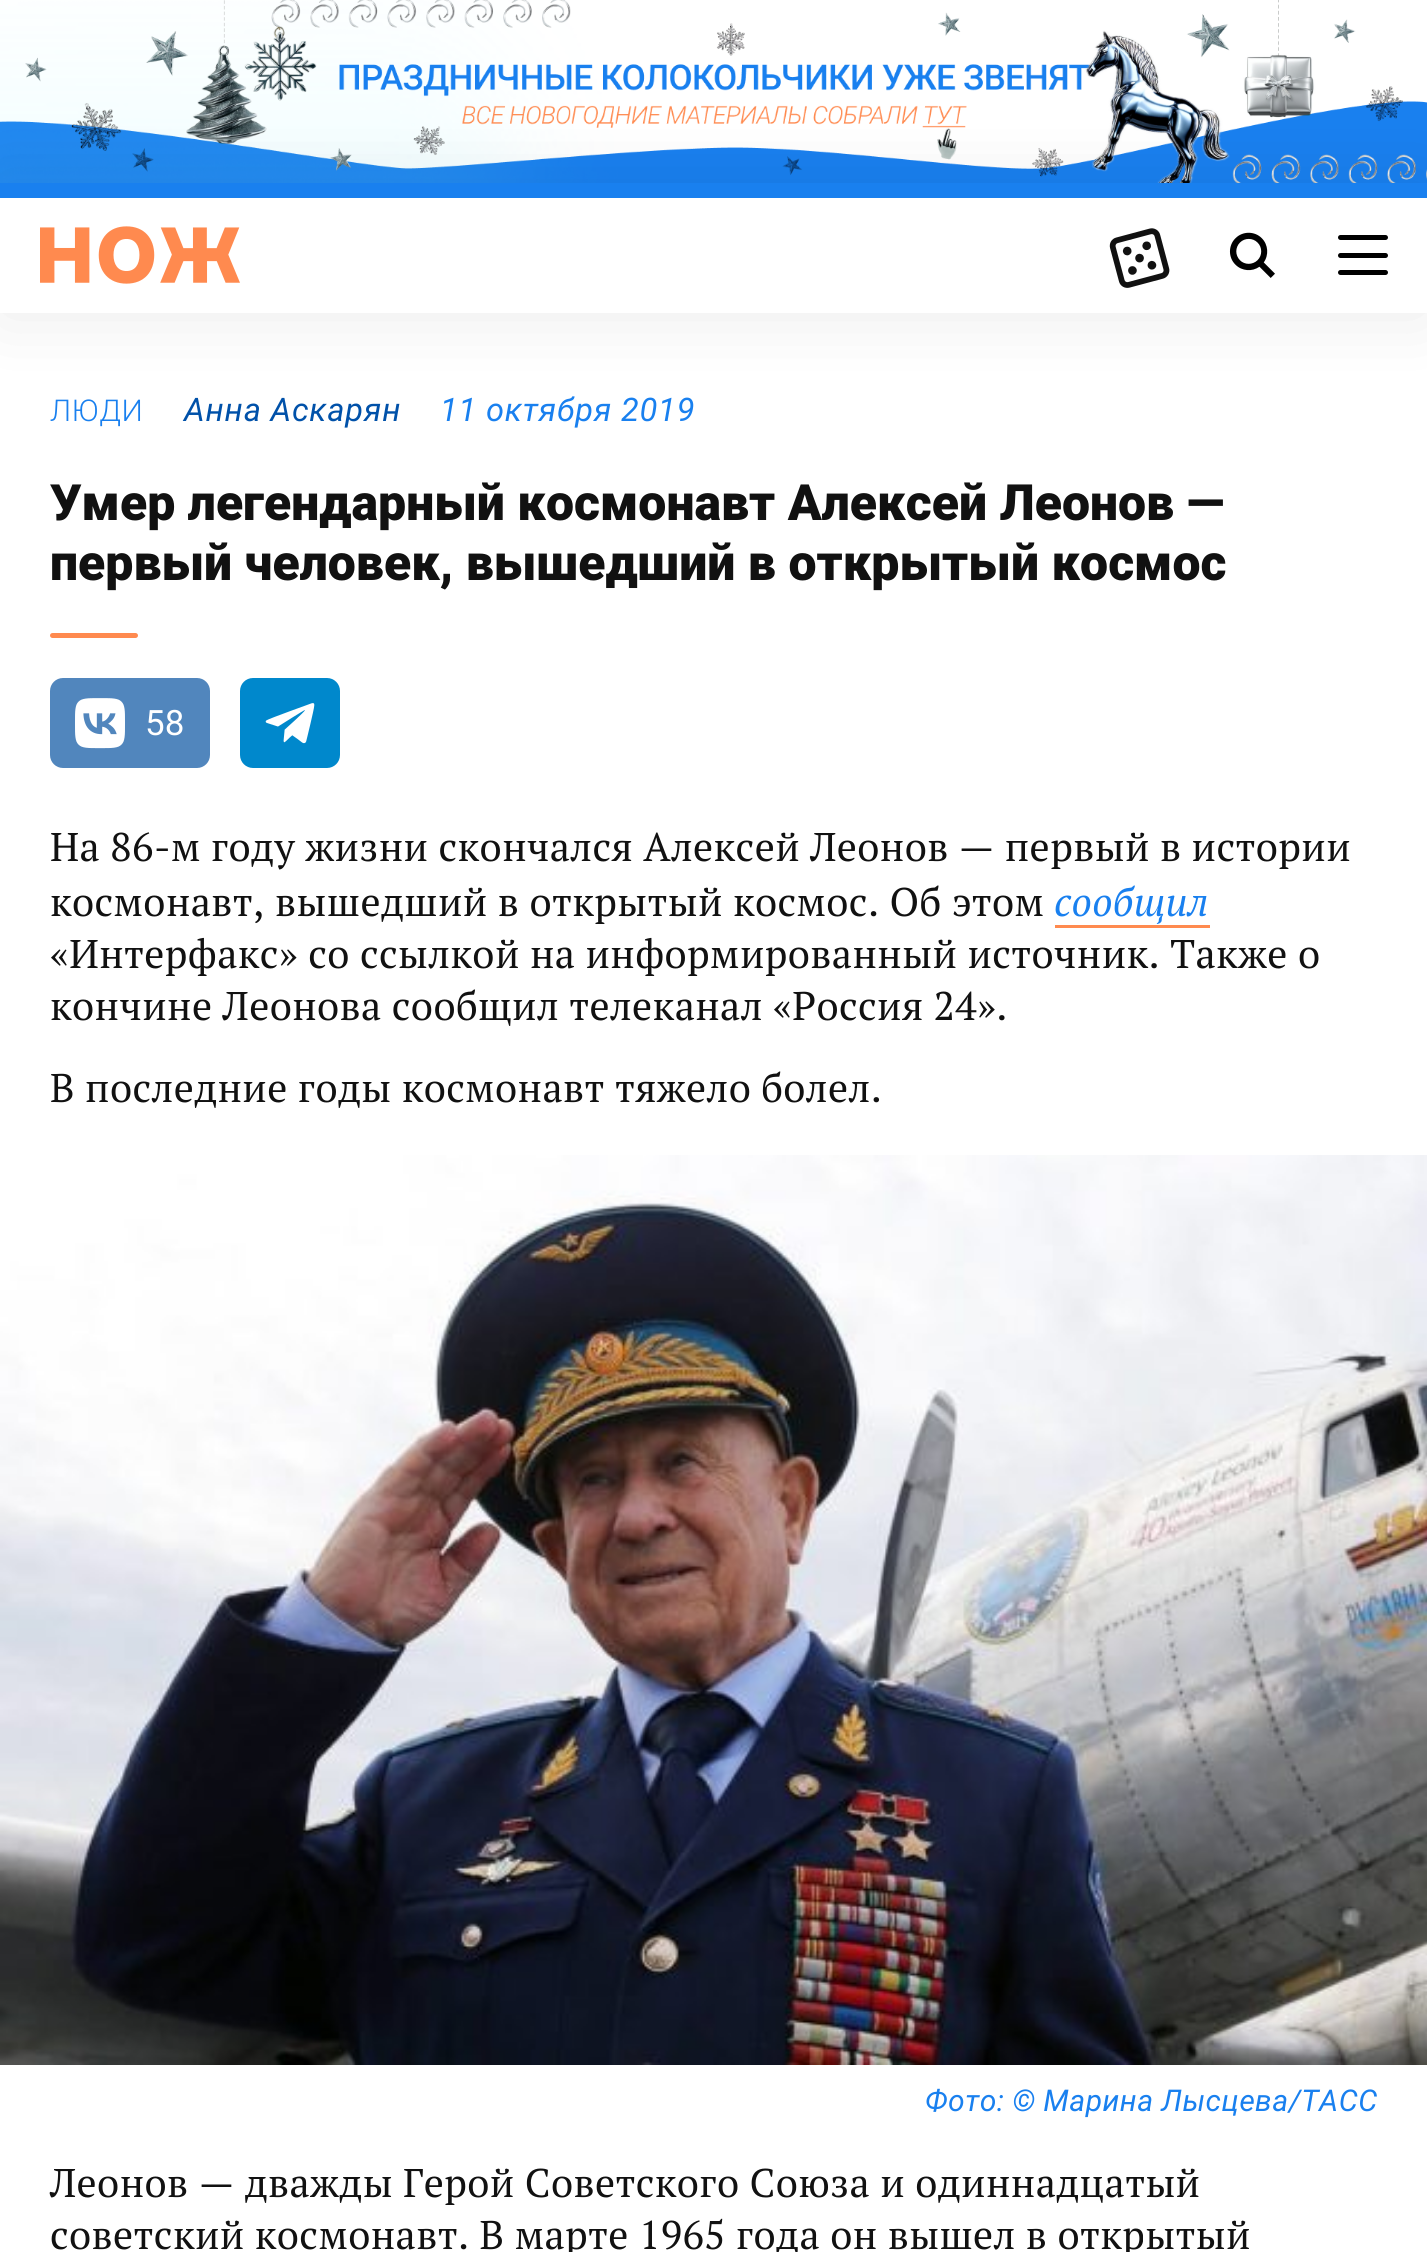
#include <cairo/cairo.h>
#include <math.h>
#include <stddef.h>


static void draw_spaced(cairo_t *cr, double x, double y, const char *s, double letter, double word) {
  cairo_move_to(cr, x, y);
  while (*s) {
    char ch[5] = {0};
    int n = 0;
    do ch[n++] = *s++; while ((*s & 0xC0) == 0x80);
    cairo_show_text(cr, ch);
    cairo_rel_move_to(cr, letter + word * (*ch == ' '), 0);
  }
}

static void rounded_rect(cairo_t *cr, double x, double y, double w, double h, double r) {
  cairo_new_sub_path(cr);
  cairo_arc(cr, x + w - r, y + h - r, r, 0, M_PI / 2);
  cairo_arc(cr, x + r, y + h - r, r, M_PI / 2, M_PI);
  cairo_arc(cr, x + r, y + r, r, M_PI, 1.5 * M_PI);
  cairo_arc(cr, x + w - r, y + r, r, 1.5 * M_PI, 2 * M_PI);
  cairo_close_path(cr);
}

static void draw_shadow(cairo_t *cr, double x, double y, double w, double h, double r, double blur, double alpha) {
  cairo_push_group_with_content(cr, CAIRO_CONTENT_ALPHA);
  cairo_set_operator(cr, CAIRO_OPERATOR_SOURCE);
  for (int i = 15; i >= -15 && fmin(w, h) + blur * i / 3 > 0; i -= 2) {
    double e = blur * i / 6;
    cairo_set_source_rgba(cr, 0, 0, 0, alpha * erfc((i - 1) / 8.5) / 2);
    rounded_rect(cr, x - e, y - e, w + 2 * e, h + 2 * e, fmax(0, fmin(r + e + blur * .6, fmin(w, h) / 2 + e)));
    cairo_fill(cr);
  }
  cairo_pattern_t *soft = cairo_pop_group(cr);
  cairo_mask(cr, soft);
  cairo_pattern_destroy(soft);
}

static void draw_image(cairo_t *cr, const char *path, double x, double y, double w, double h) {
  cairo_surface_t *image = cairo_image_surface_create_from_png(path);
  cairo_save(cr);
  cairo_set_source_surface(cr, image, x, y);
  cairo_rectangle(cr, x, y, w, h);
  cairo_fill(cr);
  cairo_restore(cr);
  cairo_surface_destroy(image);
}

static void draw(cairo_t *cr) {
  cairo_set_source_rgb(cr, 1, 1, 1);
  cairo_paint(cr);
  draw_image(cr, "images/1.png", 0, 0, 1427, 183);
  cairo_set_source_rgb(cr, 0, 0, 0);
  draw_shadow(cr, 0, 185, 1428, 130, 0, 37.5, 0.08);
  cairo_set_source_rgb(cr, 1, 1, 1);
  cairo_rectangle(cr, 0, 198, 1427, 115);
  cairo_fill(cr);
  cairo_set_source_rgb(cr, 25 / 255.0, 128 / 255.0, 239 / 255.0);
  cairo_rectangle(cr, 0, 183, 1427, 15);
  cairo_fill(cr);
  draw_image(cr, "images/2.png", 40, 226, 200, 58);
  draw_image(cr, "images/3.png", 1109, 228, 61, 60);
  draw_image(cr, "images/4.png", 1229, 232, 46, 46);
  cairo_set_source_rgb(cr, 0, 0, 0);
  rounded_rect(cr, 1338, 235, 50, 5, 2.5);
  cairo_fill(cr);
  rounded_rect(cr, 1338, 253, 50, 5, 2.5);
  cairo_fill(cr);
  rounded_rect(cr, 1338, 270, 50, 5, 2.5);
  cairo_fill(cr);
  cairo_set_source_rgb(cr, 1, 138 / 255.0, 79 / 255.0);
  rounded_rect(cr, 50, 633, 88, 5, 2.5);
  cairo_fill(cr);
  cairo_set_source_rgb(cr, 81 / 255.0, 134 / 255.0, 189 / 255.0);
  rounded_rect(cr, 50, 678, 160, 90, 13);
  cairo_fill(cr);
  draw_image(cr, "images/5.png", 75, 698, 50, 51);
  cairo_set_source_rgb(cr, 0, 136 / 255.0, 204 / 255.0);
  rounded_rect(cr, 240, 678, 100, 90, 13);
  cairo_fill(cr);
  draw_image(cr, "images/6.png", 265, 703, 50, 41);
  cairo_set_source_rgb(cr, 1, 138 / 255.0, 79 / 255.0);
  cairo_rectangle(cr, 1055, 925, 155, 3);
  cairo_fill(cr);
  draw_image(cr, "images/7.png", 0, 1155, 1427, 910);
  cairo_select_font_face(cr, "Roboto Light", CAIRO_FONT_SLANT_NORMAL, CAIRO_FONT_WEIGHT_NORMAL);
  cairo_set_font_size(cr, 30);
  cairo_set_source_rgb(cr, 25 / 255.0, 128 / 255.0, 239 / 255.0);
  draw_spaced(cr, 50, 421, "ЛЮДИ", 0.5, 0);
  cairo_select_font_face(cr, "Roboto", CAIRO_FONT_SLANT_ITALIC, CAIRO_FONT_WEIGHT_NORMAL);
  cairo_set_font_size(cr, 32.5);
  cairo_set_source_rgb(cr, 0, 81 / 255.0, 169 / 255.0);
  draw_spaced(cr, 184, 421, "Анна Аскарян", 0.75, 0);
  cairo_set_source_rgb(cr, 25 / 255.0, 128 / 255.0, 239 / 255.0);
  draw_spaced(cr, 440, 421, "11 октября 2019", 0.75, 0);
  cairo_select_font_face(cr, "Roboto Black", CAIRO_FONT_SLANT_NORMAL, CAIRO_FONT_WEIGHT_NORMAL);
  cairo_set_font_size(cr, 50);
  cairo_set_source_rgb(cr, 17 / 255.0, 17 / 255.0, 17 / 255.0);
  cairo_move_to(cr, 50, 520);
  cairo_show_text(cr, "Умер легендарный космонавт Алексей Леонов —");
  cairo_move_to(cr, 50, 580);
  cairo_show_text(cr, "первый человек, вышедший в открытый космос");
  cairo_select_font_face(cr, "Roboto", CAIRO_FONT_SLANT_NORMAL, CAIRO_FONT_WEIGHT_NORMAL);
  cairo_set_font_size(cr, 35);
  cairo_set_source_rgb(cr, 1, 1, 1);
  cairo_move_to(cr, 145, 735);
  cairo_show_text(cr, "58");
  cairo_select_font_face(cr, "PT Serif", CAIRO_FONT_SLANT_NORMAL, CAIRO_FONT_WEIGHT_NORMAL);
  cairo_set_font_size(cr, 40);
  cairo_set_source_rgb(cr, 17 / 255.0, 17 / 255.0, 17 / 255.0);
  draw_spaced(cr, 50, 861, "На 86-м году жизни скончался Алексей Леонов — первый в истории", 0.4, 0);
  draw_spaced(cr, 50, 916, "космонавт, вышедший в открытый космос. Об этом", 0.4, 0);
  cairo_select_font_face(cr, "PT Serif", CAIRO_FONT_SLANT_ITALIC, CAIRO_FONT_WEIGHT_NORMAL);
  cairo_set_source_rgb(cr, 25 / 255.0, 128 / 255.0, 239 / 255.0);
  draw_spaced(cr, 1054, 916, "сообщил", 0.4, 0);
  cairo_select_font_face(cr, "PT Serif", CAIRO_FONT_SLANT_NORMAL, CAIRO_FONT_WEIGHT_NORMAL);
  cairo_set_source_rgb(cr, 17 / 255.0, 17 / 255.0, 17 / 255.0);
  draw_spaced(cr, 50, 968, "«Интерфакс» со ссылкой на информированный источник. Также о", 0.4, 0);
  draw_spaced(cr, 50, 1020, "кончине Леонова сообщил телеканал «Россия 24».", 0.4, 0);
  draw_spaced(cr, 50, 1102, "В последние годы космонавт тяжело болел.", 0.4, 0);
  cairo_select_font_face(cr, "Roboto", CAIRO_FONT_SLANT_ITALIC, CAIRO_FONT_WEIGHT_NORMAL);
  cairo_set_font_size(cr, 30);
  cairo_set_source_rgb(cr, 25 / 255.0, 128 / 255.0, 239 / 255.0);
  draw_spaced(cr, 925, 2111, "Фото: © Марина Лысцева/ТАСС", 0.4, 0);
  cairo_select_font_face(cr, "PT Serif", CAIRO_FONT_SLANT_NORMAL, CAIRO_FONT_WEIGHT_NORMAL);
  cairo_set_font_size(cr, 40);
  cairo_set_source_rgb(cr, 17 / 255.0, 17 / 255.0, 17 / 255.0);
  draw_spaced(cr, 50, 2197, "Леонов — дважды Герой Советского Союза и одиннадцатый", 0.4, 0);
  draw_spaced(cr, 50, 2249, "советский космонавт. В марте 1965 года он вышел в открытый", 0.4, 0);
}

int main(void) {
  cairo_surface_t *surface = cairo_image_surface_create(CAIRO_FORMAT_RGB24, 1427, 2252);
  cairo_t *cr = cairo_create(surface);
  cairo_font_options_t *options = cairo_font_options_create();
  cairo_font_options_set_hint_metrics(options, CAIRO_HINT_METRICS_OFF);
  cairo_font_options_set_hint_style(options, CAIRO_HINT_STYLE_NONE);
  cairo_set_font_options(cr, options);
  cairo_set_miter_limit(cr, 4);
  draw(cr);
  cairo_surface_write_to_png(surface, "out.png");
  cairo_font_options_destroy(options);
  cairo_destroy(cr);
  cairo_surface_destroy(surface);
  return 0;
}
